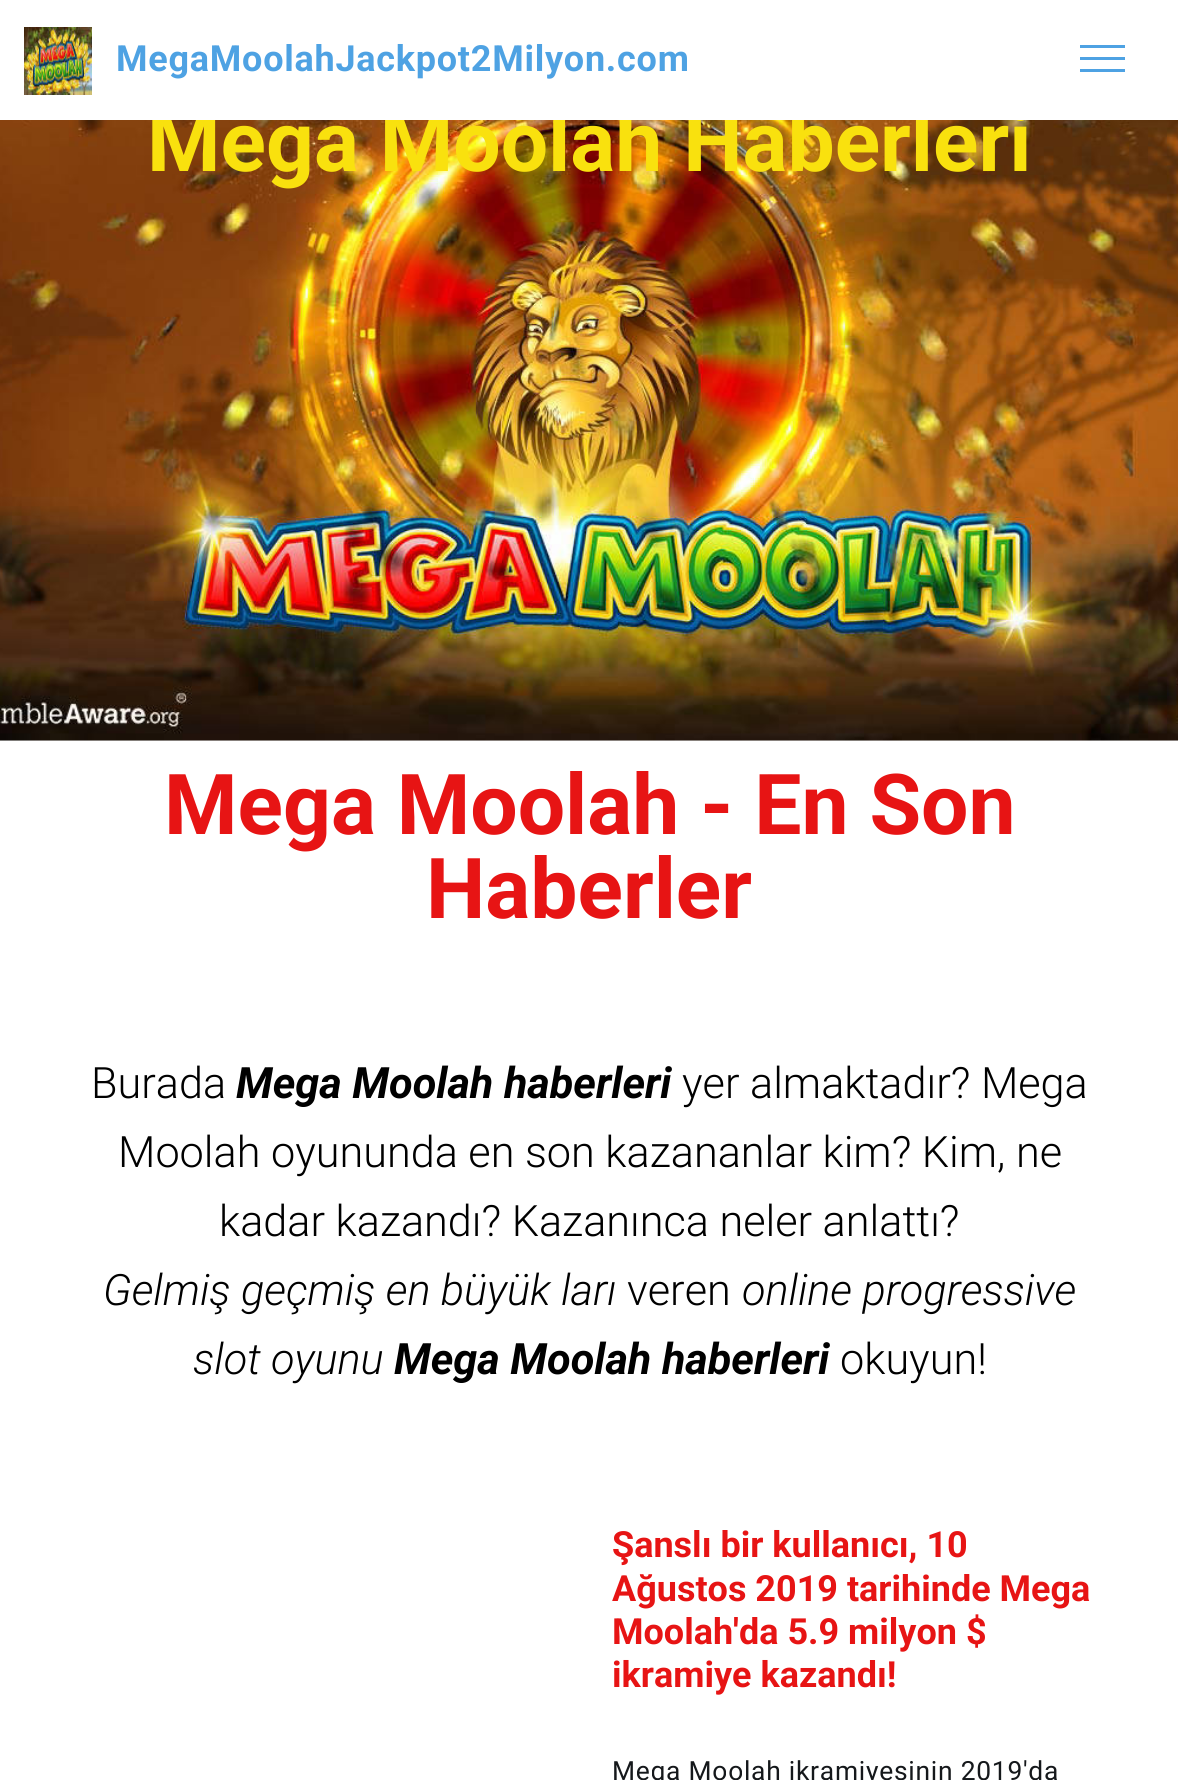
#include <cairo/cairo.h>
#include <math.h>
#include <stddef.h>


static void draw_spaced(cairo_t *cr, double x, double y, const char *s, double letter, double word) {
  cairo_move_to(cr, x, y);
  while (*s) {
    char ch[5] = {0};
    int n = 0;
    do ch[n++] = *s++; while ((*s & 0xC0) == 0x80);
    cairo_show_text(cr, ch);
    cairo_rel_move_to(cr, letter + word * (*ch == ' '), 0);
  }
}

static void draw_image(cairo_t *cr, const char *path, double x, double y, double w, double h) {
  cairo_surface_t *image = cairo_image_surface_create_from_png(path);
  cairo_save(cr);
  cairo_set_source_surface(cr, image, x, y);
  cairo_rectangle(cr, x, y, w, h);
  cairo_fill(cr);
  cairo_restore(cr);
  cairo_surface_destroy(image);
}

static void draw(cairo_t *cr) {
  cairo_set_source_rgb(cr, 1, 1, 1);
  cairo_paint(cr);
  draw_image(cr, "images/1.png", 24, 27, 68, 68);
  cairo_set_source_rgb(cr, 78 / 255.0, 162 / 255.0, 227 / 255.0);
  cairo_rectangle(cr, 1080, 45, 45, 3);
  cairo_fill(cr);
  cairo_rectangle(cr, 1080, 57, 45, 3);
  cairo_fill(cr);
  cairo_rectangle(cr, 1080, 69, 45, 3);
  cairo_fill(cr);
  cairo_set_source_rgb(cr, 238 / 255.0, 238 / 255.0, 238 / 255.0);
  cairo_rectangle(cr, 0, 740, 1178, 1);
  cairo_fill(cr);
  draw_image(cr, "images/2.png", 0, 120, 1178, 621);
  cairo_select_font_face(cr, "Roboto", CAIRO_FONT_SLANT_NORMAL, CAIRO_FONT_WEIGHT_BOLD);
  cairo_set_font_size(cr, 36);
  cairo_set_source_rgb(cr, 78 / 255.0, 162 / 255.0, 227 / 255.0);
  draw_spaced(cr, 116, 71, "MegaMoolahJackpot2Milyon.com", 0.75, 0);
  cairo_set_font_size(cr, 84);
  cairo_set_source_rgb(cr, 249 / 255.0, 225 / 255.0, 14 / 255.0);
  cairo_move_to(cr, 147, 171);
  cairo_show_text(cr, "Mega Moolah Haberleri");
  cairo_set_source_rgb(cr, 1, 1, 1);
  cairo_rectangle(cr, 152, 108, 876, 12);
  cairo_fill(cr);
  cairo_set_source_rgb(cr, 231 / 255.0, 20 / 255.0, 20 / 255.0);
  cairo_move_to(cr, 164, 834);
  cairo_show_text(cr, "Mega Moolah - En Son");
  cairo_move_to(cr, 426, 918);
  cairo_show_text(cr, "Haberler");
  cairo_select_font_face(cr, "Roboto Light", CAIRO_FONT_SLANT_NORMAL, CAIRO_FONT_WEIGHT_NORMAL);
  cairo_set_font_size(cr, 43.2);
  cairo_set_source_rgb(cr, 0, 0, 0);
  cairo_move_to(cr, 91, 1098);
  cairo_show_text(cr, "Burada");
  cairo_select_font_face(cr, "Roboto", CAIRO_FONT_SLANT_ITALIC, CAIRO_FONT_WEIGHT_BOLD);
  cairo_move_to(cr, 236, 1098);
  cairo_show_text(cr, "Mega Moolah haberleri");
  cairo_select_font_face(cr, "Roboto Light", CAIRO_FONT_SLANT_NORMAL, CAIRO_FONT_WEIGHT_NORMAL);
  cairo_move_to(cr, 682, 1098);
  cairo_show_text(cr, "yer almaktadır? Mega");
  cairo_move_to(cr, 118, 1167);
  cairo_show_text(cr, "Moolah oyununda en son kazananlar kim? Kim, ne");
  cairo_move_to(cr, 219, 1236);
  cairo_show_text(cr, "kadar kazandı? Kazanınca neler anlattı?");
  cairo_select_font_face(cr, "Roboto Light", CAIRO_FONT_SLANT_ITALIC, CAIRO_FONT_WEIGHT_NORMAL);
  cairo_move_to(cr, 103, 1305);
  cairo_show_text(cr, "Gelmiş geçmiş en büyük ları");
  cairo_select_font_face(cr, "Roboto Light", CAIRO_FONT_SLANT_NORMAL, CAIRO_FONT_WEIGHT_NORMAL);
  cairo_move_to(cr, 627, 1305);
  cairo_show_text(cr, "veren");
  cairo_select_font_face(cr, "Roboto Light", CAIRO_FONT_SLANT_ITALIC, CAIRO_FONT_WEIGHT_NORMAL);
  cairo_move_to(cr, 742, 1305);
  cairo_show_text(cr, "online progressive");
  cairo_move_to(cr, 193, 1374);
  cairo_show_text(cr, "slot oyunu");
  cairo_select_font_face(cr, "Roboto", CAIRO_FONT_SLANT_ITALIC, CAIRO_FONT_WEIGHT_BOLD);
  cairo_move_to(cr, 394, 1374);
  cairo_show_text(cr, "Mega Moolah haberleri");
  cairo_select_font_face(cr, "Roboto Light", CAIRO_FONT_SLANT_NORMAL, CAIRO_FONT_WEIGHT_NORMAL);
  cairo_move_to(cr, 840, 1374);
  cairo_show_text(cr, "okuyun!");
  cairo_select_font_face(cr, "Roboto", CAIRO_FONT_SLANT_NORMAL, CAIRO_FONT_WEIGHT_BOLD);
  cairo_set_font_size(cr, 36);
  cairo_set_source_rgb(cr, 231 / 255.0, 20 / 255.0, 20 / 255.0);
  cairo_move_to(cr, 612, 1557);
  cairo_show_text(cr, "Şanslı bir kullanıcı, 10");
  cairo_move_to(cr, 612, 1601);
  cairo_show_text(cr, "Ağustos 2019 tarihinde Mega");
  cairo_move_to(cr, 612, 1644);
  cairo_show_text(cr, "Moolah'da 5.9 milyon $");
  cairo_move_to(cr, 612, 1687);
  cairo_show_text(cr, "ikramiye kazandı!");
  cairo_select_font_face(cr, "Roboto", CAIRO_FONT_SLANT_NORMAL, CAIRO_FONT_WEIGHT_NORMAL);
  cairo_set_font_size(cr, 26.4);
  cairo_set_source_rgb(cr, 21 / 255.0, 24 / 255.0, 27 / 255.0);
  draw_spaced(cr, 612, 1780, "Mega Moolah ikramiyesinin 2019'da", 0.75, 0);
}

int main(void) {
  cairo_surface_t *surface = cairo_image_surface_create(CAIRO_FORMAT_RGB24, 1178, 1780);
  cairo_t *cr = cairo_create(surface);
  cairo_font_options_t *options = cairo_font_options_create();
  cairo_font_options_set_hint_metrics(options, CAIRO_HINT_METRICS_OFF);
  cairo_font_options_set_hint_style(options, CAIRO_HINT_STYLE_NONE);
  cairo_set_font_options(cr, options);
  cairo_set_miter_limit(cr, 4);
  draw(cr);
  cairo_surface_write_to_png(surface, "out.png");
  cairo_font_options_destroy(options);
  cairo_destroy(cr);
  cairo_surface_destroy(surface);
  return 0;
}
